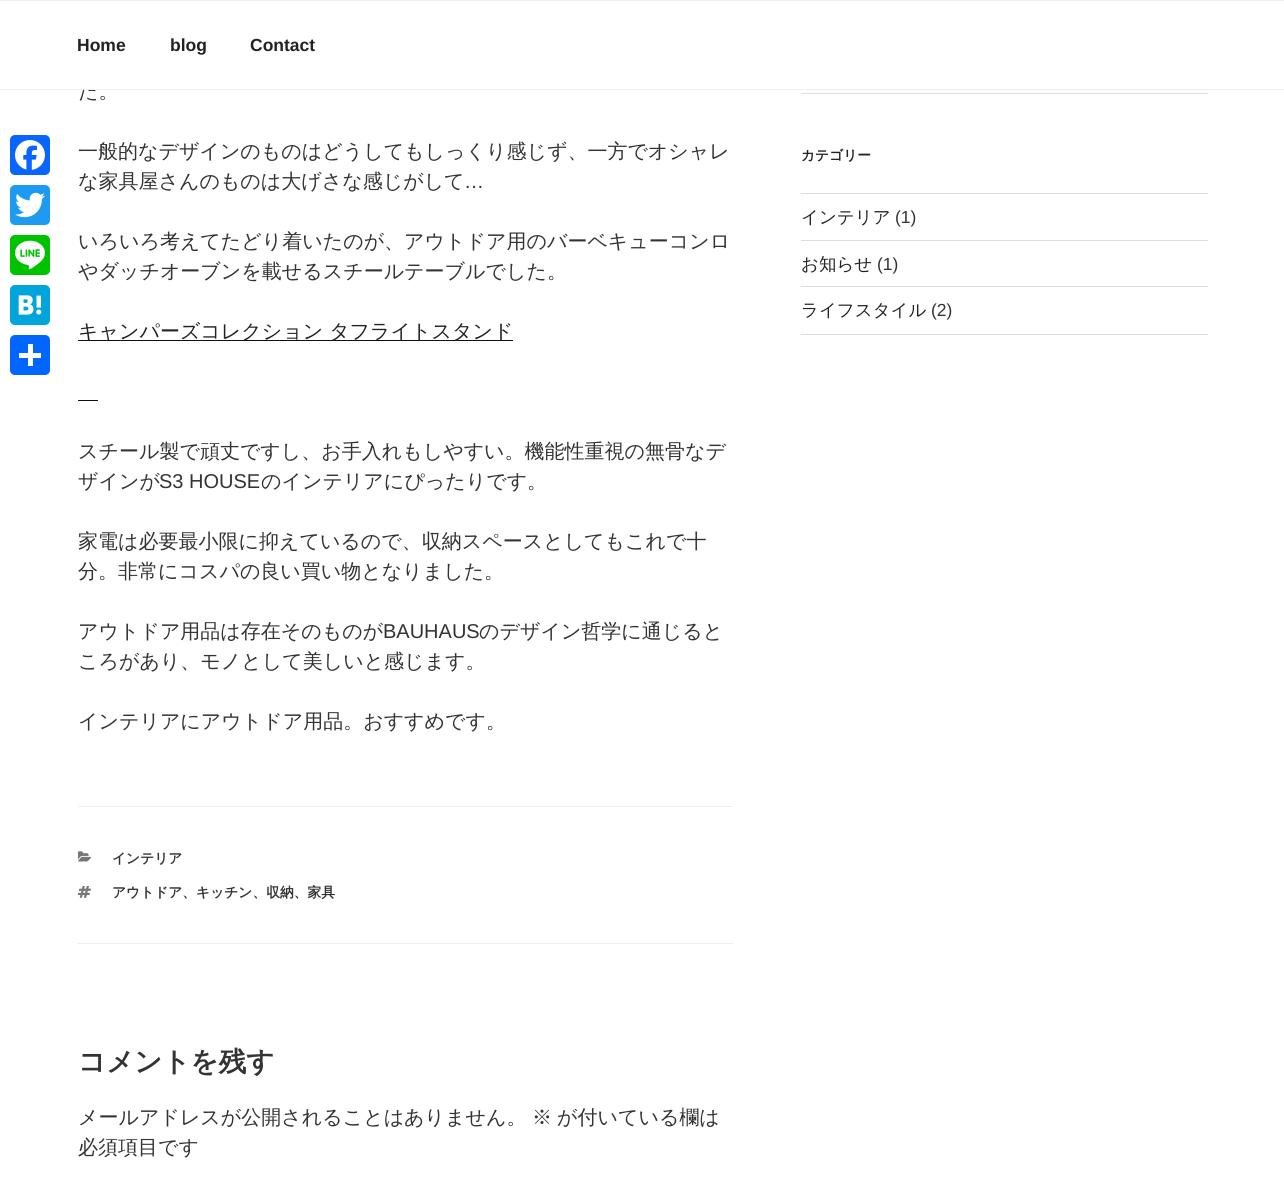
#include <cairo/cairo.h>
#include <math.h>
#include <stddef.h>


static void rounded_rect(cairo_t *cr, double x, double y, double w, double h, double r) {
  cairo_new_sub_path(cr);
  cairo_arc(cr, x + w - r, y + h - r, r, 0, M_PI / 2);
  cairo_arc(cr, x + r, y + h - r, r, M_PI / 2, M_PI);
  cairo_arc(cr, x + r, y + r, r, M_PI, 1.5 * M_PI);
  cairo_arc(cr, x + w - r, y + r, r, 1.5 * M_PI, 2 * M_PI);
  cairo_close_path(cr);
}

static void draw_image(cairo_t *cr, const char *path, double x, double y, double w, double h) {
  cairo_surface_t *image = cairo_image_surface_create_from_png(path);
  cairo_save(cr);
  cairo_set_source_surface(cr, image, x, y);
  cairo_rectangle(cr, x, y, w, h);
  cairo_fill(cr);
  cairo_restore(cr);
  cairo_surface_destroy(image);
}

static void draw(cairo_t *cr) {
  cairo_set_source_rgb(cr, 1, 1, 1);
  cairo_paint(cr);
  cairo_set_source_rgb(cr, 8 / 255.0, 102 / 255.0, 1);
  rounded_rect(cr, 10, 135, 40, 40, 5);
  cairo_fill(cr);
  draw_image(cr, "images/1.png", 15, 140, 30, 30);
  cairo_set_source_rgb(cr, 29 / 255.0, 155 / 255.0, 240 / 255.0);
  rounded_rect(cr, 10, 185, 40, 40, 5);
  cairo_fill(cr);
  draw_image(cr, "images/2.png", 15, 192, 30, 26);
  cairo_set_source_rgb(cr, 0, 195 / 255.0, 0);
  rounded_rect(cr, 10, 235, 40, 40, 5);
  cairo_fill(cr);
  draw_image(cr, "images/3.png", 15, 240, 30, 30);
  cairo_set_source_rgb(cr, 0, 166 / 255.0, 219 / 255.0);
  rounded_rect(cr, 10, 285, 40, 40, 5);
  cairo_fill(cr);
  draw_image(cr, "images/4.png", 18, 295, 24, 20);
  cairo_set_source_rgb(cr, 1 / 255.0, 102 / 255.0, 1);
  rounded_rect(cr, 10, 335, 40, 40, 5);
  cairo_fill(cr);
  cairo_set_source_rgb(cr, 1, 1, 1);
  cairo_rectangle(cr, 28, 344, 5, 22);
  cairo_fill(cr);
  cairo_rectangle(cr, 19, 353, 22, 5);
  cairo_fill(cr);
  cairo_set_source_rgb(cr, 238 / 255.0, 238 / 255.0, 238 / 255.0);
  cairo_rectangle(cr, 0, 0, 1284, 1);
  cairo_fill(cr);
  cairo_set_source_rgb(cr, 15 / 255.0, 15 / 255.0, 15 / 255.0);
  cairo_rectangle(cr, 78, 340, 435, 1);
  cairo_fill(cr);
  cairo_rectangle(cr, 78, 400, 20, 1);
  cairo_fill(cr);
  cairo_set_source_rgb(cr, 238 / 255.0, 238 / 255.0, 238 / 255.0);
  cairo_rectangle(cr, 78, 806, 655, 1);
  cairo_fill(cr);
  cairo_rectangle(cr, 78, 943, 655, 1);
  cairo_fill(cr);
  draw_image(cr, "images/5.png", 78, 851, 13, 11);
  draw_image(cr, "images/6.png", 78, 886, 13, 12);
  cairo_set_source_rgb(cr, 221 / 255.0, 221 / 255.0, 221 / 255.0);
  cairo_rectangle(cr, 801, 93, 407, 1);
  cairo_fill(cr);
  cairo_rectangle(cr, 801, 193, 407, 1);
  cairo_fill(cr);
  cairo_rectangle(cr, 801, 240, 407, 1);
  cairo_fill(cr);
  cairo_rectangle(cr, 801, 286, 407, 1);
  cairo_fill(cr);
  cairo_rectangle(cr, 801, 334, 407, 1);
  cairo_fill(cr);
  cairo_select_font_face(cr, "Liberation Sans", CAIRO_FONT_SLANT_NORMAL, CAIRO_FONT_WEIGHT_BOLD);
  cairo_set_font_size(cr, 17.5);
  cairo_set_source_rgb(cr, 34 / 255.0, 34 / 255.0, 34 / 255.0);
  cairo_move_to(cr, 77, 51);
  cairo_show_text(cr, "Home");
  cairo_move_to(cr, 170, 51);
  cairo_show_text(cr, "blog");
  cairo_move_to(cr, 250, 51);
  cairo_show_text(cr, "Contact");
  cairo_select_font_face(cr, "WenQuanYi Zen Hei Medium", CAIRO_FONT_SLANT_NORMAL, CAIRO_FONT_WEIGHT_NORMAL);
  cairo_set_font_size(cr, 20);
  cairo_set_source_rgb(cr, 51 / 255.0, 51 / 255.0, 51 / 255.0);
  cairo_move_to(cr, 78, 98);
  cairo_show_text(cr, "た。");
  cairo_set_source_rgb(cr, 238 / 255.0, 238 / 255.0, 238 / 255.0);
  cairo_rectangle(cr, 0, 89, 1284, 1);
  cairo_fill(cr);
  cairo_set_source_rgb(cr, 1, 1, 1);
  cairo_rectangle(cr, 78, 83, 10, 6);
  cairo_fill(cr);
  cairo_set_source_rgb(cr, 51 / 255.0, 51 / 255.0, 51 / 255.0);
  cairo_move_to(cr, 78, 158);
  cairo_show_text(cr, "一般的なデザインのものはどうしてもしっくり感じず、一方でオシャレ");
  cairo_move_to(cr, 78, 188);
  cairo_show_text(cr, "な家具屋さんのものは大げさな感じがして");
  cairo_select_font_face(cr, "Liberation Sans", CAIRO_FONT_SLANT_NORMAL, CAIRO_FONT_WEIGHT_NORMAL);
  cairo_move_to(cr, 464, 188);
  cairo_show_text(cr, "…");
  cairo_select_font_face(cr, "WenQuanYi Zen Hei Medium", CAIRO_FONT_SLANT_NORMAL, CAIRO_FONT_WEIGHT_NORMAL);
  cairo_move_to(cr, 78, 248);
  cairo_show_text(cr, "いろいろ考えてたどり着いたのが、アウトドア用のバーベキューコンロ");
  cairo_move_to(cr, 78, 278);
  cairo_show_text(cr, "やダッチオーブンを載せるスチールテーブルでした。");
  cairo_set_source_rgb(cr, 34 / 255.0, 34 / 255.0, 34 / 255.0);
  cairo_move_to(cr, 78, 338);
  cairo_show_text(cr, "キャンパーズコレクション タフライトスタンド");
  cairo_set_source_rgb(cr, 51 / 255.0, 51 / 255.0, 51 / 255.0);
  cairo_move_to(cr, 78, 458);
  cairo_show_text(cr, "スチール製で頑丈ですし、お手入れもしやすい。機能性重視の無骨なデ");
  cairo_move_to(cr, 78, 488);
  cairo_show_text(cr, "ザインが");
  cairo_select_font_face(cr, "Liberation Sans", CAIRO_FONT_SLANT_NORMAL, CAIRO_FONT_WEIGHT_NORMAL);
  cairo_move_to(cr, 159, 488);
  cairo_show_text(cr, "S3 HOUSE");
  cairo_select_font_face(cr, "WenQuanYi Zen Hei Medium", CAIRO_FONT_SLANT_NORMAL, CAIRO_FONT_WEIGHT_NORMAL);
  cairo_move_to(cr, 261, 488);
  cairo_show_text(cr, "のインテリアにぴったりです。");
  cairo_move_to(cr, 78, 548);
  cairo_show_text(cr, "家電は必要最小限に抑えているので、収納スペースとしてもこれで十");
  cairo_move_to(cr, 78, 578);
  cairo_show_text(cr, "分。非常にコスパの良い買い物となりました。");
  cairo_move_to(cr, 78, 638);
  cairo_show_text(cr, "アウトドア用品は存在そのものが");
  cairo_select_font_face(cr, "Liberation Sans", CAIRO_FONT_SLANT_NORMAL, CAIRO_FONT_WEIGHT_NORMAL);
  cairo_move_to(cr, 383, 638);
  cairo_show_text(cr, "BAUHAUS");
  cairo_select_font_face(cr, "WenQuanYi Zen Hei Medium", CAIRO_FONT_SLANT_NORMAL, CAIRO_FONT_WEIGHT_NORMAL);
  cairo_move_to(cr, 479, 638);
  cairo_show_text(cr, "のデザイン哲学に通じると");
  cairo_move_to(cr, 78, 668);
  cairo_show_text(cr, "ころがあり、モノとして美しいと感じます。");
  cairo_move_to(cr, 78, 728);
  cairo_show_text(cr, "インテリアにアウトドア用品。おすすめです。");
  cairo_select_font_face(cr, "WenQuanYi Zen Hei", CAIRO_FONT_SLANT_NORMAL, CAIRO_FONT_WEIGHT_BOLD);
  cairo_set_font_size(cr, 13.75);
  cairo_move_to(cr, 112, 863);
  cairo_show_text(cr, "インテリア");
  cairo_move_to(cr, 112, 897);
  cairo_show_text(cr, "アウトドア、キッチン、収納、家具");
  cairo_set_font_size(cr, 27.5);
  cairo_move_to(cr, 78, 1071);
  cairo_show_text(cr, "コメントを残す");
  cairo_select_font_face(cr, "WenQuanYi Zen Hei Medium", CAIRO_FONT_SLANT_NORMAL, CAIRO_FONT_WEIGHT_NORMAL);
  cairo_set_font_size(cr, 20);
  cairo_move_to(cr, 78, 1124);
  cairo_show_text(cr, "メールアドレスが公開されることはありません。");
  cairo_move_to(cr, 532, 1124);
  cairo_show_text(cr, "※");
  cairo_move_to(cr, 557, 1124);
  cairo_show_text(cr, "が付いている欄は");
  cairo_move_to(cr, 78, 1154);
  cairo_show_text(cr, "必須項目です");
  cairo_select_font_face(cr, "WenQuanYi Zen Hei", CAIRO_FONT_SLANT_NORMAL, CAIRO_FONT_WEIGHT_BOLD);
  cairo_set_font_size(cr, 13.75);
  cairo_set_source_rgb(cr, 34 / 255.0, 34 / 255.0, 34 / 255.0);
  cairo_move_to(cr, 801, 160);
  cairo_show_text(cr, "カテゴリー");
  cairo_select_font_face(cr, "WenQuanYi Zen Hei Medium", CAIRO_FONT_SLANT_NORMAL, CAIRO_FONT_WEIGHT_NORMAL);
  cairo_set_font_size(cr, 17.5);
  cairo_move_to(cr, 801, 223);
  cairo_show_text(cr, "インテリア");
  cairo_select_font_face(cr, "Liberation Sans", CAIRO_FONT_SLANT_NORMAL, CAIRO_FONT_WEIGHT_NORMAL);
  cairo_set_source_rgb(cr, 51 / 255.0, 51 / 255.0, 51 / 255.0);
  cairo_move_to(cr, 895, 223);
  cairo_show_text(cr, "(1)");
  cairo_select_font_face(cr, "WenQuanYi Zen Hei Medium", CAIRO_FONT_SLANT_NORMAL, CAIRO_FONT_WEIGHT_NORMAL);
  cairo_set_source_rgb(cr, 34 / 255.0, 34 / 255.0, 34 / 255.0);
  cairo_move_to(cr, 801, 270);
  cairo_show_text(cr, "お知らせ");
  cairo_select_font_face(cr, "Liberation Sans", CAIRO_FONT_SLANT_NORMAL, CAIRO_FONT_WEIGHT_NORMAL);
  cairo_set_source_rgb(cr, 51 / 255.0, 51 / 255.0, 51 / 255.0);
  cairo_move_to(cr, 877, 270);
  cairo_show_text(cr, "(1)");
  cairo_select_font_face(cr, "WenQuanYi Zen Hei Medium", CAIRO_FONT_SLANT_NORMAL, CAIRO_FONT_WEIGHT_NORMAL);
  cairo_set_source_rgb(cr, 34 / 255.0, 34 / 255.0, 34 / 255.0);
  cairo_move_to(cr, 801, 316);
  cairo_show_text(cr, "ライフスタイル");
  cairo_select_font_face(cr, "Liberation Sans", CAIRO_FONT_SLANT_NORMAL, CAIRO_FONT_WEIGHT_NORMAL);
  cairo_set_source_rgb(cr, 51 / 255.0, 51 / 255.0, 51 / 255.0);
  cairo_move_to(cr, 931, 316);
  cairo_show_text(cr, "(2)");
}

int main(void) {
  cairo_surface_t *surface = cairo_image_surface_create(CAIRO_FORMAT_RGB24, 1284, 1191);
  cairo_t *cr = cairo_create(surface);
  cairo_font_options_t *options = cairo_font_options_create();
  cairo_font_options_set_hint_metrics(options, CAIRO_HINT_METRICS_OFF);
  cairo_font_options_set_hint_style(options, CAIRO_HINT_STYLE_NONE);
  cairo_set_font_options(cr, options);
  cairo_set_miter_limit(cr, 4);
  draw(cr);
  cairo_surface_write_to_png(surface, "out.png");
  cairo_font_options_destroy(options);
  cairo_destroy(cr);
  cairo_surface_destroy(surface);
  return 0;
}
